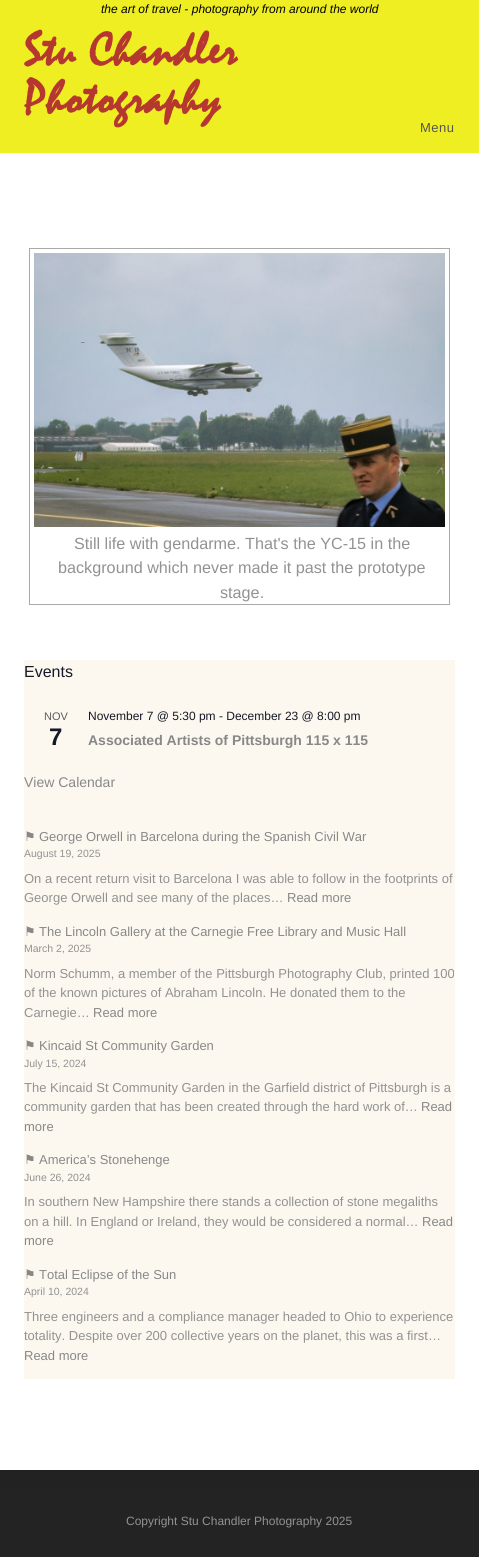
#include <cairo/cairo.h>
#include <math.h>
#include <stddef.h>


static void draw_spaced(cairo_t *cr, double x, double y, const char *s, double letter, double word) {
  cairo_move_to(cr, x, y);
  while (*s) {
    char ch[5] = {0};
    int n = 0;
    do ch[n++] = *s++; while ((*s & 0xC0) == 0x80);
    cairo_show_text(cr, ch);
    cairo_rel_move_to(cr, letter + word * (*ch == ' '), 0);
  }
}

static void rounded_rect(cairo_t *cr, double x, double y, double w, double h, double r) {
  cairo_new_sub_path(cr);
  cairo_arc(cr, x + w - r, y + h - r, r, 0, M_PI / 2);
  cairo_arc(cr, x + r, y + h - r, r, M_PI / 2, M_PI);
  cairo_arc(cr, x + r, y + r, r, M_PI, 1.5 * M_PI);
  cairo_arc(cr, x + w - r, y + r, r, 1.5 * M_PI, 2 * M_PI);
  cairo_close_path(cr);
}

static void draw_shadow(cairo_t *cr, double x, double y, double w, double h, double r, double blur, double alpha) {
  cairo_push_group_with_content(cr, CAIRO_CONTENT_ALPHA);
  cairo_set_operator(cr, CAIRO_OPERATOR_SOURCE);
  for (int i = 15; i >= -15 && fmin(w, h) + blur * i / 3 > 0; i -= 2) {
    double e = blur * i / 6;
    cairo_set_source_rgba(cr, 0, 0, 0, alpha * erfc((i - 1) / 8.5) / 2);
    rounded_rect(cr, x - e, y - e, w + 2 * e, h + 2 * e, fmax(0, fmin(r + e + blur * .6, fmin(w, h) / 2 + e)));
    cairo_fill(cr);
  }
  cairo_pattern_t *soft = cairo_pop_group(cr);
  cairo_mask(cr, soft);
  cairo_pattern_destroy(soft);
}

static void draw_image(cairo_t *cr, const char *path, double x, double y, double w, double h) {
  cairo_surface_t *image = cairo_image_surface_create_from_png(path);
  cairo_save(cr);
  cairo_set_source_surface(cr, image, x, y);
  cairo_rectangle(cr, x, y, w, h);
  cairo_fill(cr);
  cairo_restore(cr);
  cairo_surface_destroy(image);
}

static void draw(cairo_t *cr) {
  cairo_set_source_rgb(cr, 1, 1, 1);
  cairo_paint(cr);
  cairo_set_source_rgb(cr, 35 / 255.0, 35 / 255.0, 35 / 255.0);
  cairo_rectangle(cr, 0, 1470, 479, 87);
  cairo_fill(cr);
  cairo_save(cr);
  cairo_rectangle(cr, 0, 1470, 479, 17);
  cairo_clip(cr);
  cairo_set_source_rgb(cr, 0, 0, 0);
  draw_shadow(cr, 0, 153, 479, 1317, 0, 20, 0.1);
  cairo_restore(cr);
  cairo_set_source_rgb(cr, 238 / 255.0, 238 / 255.0, 34 / 255.0);
  cairo_rectangle(cr, 0, 0, 479, 153);
  cairo_fill(cr);
  cairo_rectangle(cr, 29.5, 248.5, 420, 356);
  cairo_set_source_rgb(cr, 169 / 255.0, 169 / 255.0, 169 / 255.0);
  cairo_set_line_width(cr, 1);
  cairo_stroke(cr);
  draw_image(cr, "images/1.png", 34, 253, 411, 274);
  cairo_set_source_rgb(cr, 252 / 255.0, 248 / 255.0, 239 / 255.0);
  cairo_rectangle(cr, 24, 660, 431, 719);
  cairo_fill(cr);
  cairo_select_font_face(cr, "Liberation Sans", CAIRO_FONT_SLANT_ITALIC, CAIRO_FONT_WEIGHT_NORMAL);
  cairo_set_font_size(cr, 12);
  cairo_set_source_rgb(cr, 0, 0, 0);
  cairo_move_to(cr, 101, 13);
  cairo_show_text(cr, "the art of travel - photography from around the world");
  cairo_select_font_face(cr, "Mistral", CAIRO_FONT_SLANT_NORMAL, CAIRO_FONT_WEIGHT_BOLD);
  cairo_set_font_size(cr, 48);
  cairo_set_source_rgb(cr, 181 / 255.0, 55 / 255.0, 48 / 255.0);
  draw_spaced(cr, 24, 65, "Stu Chandler", 1, 0);
  draw_spaced(cr, 24, 113, "Photography", 1, 0);
  cairo_select_font_face(cr, "Liberation Sans", CAIRO_FONT_SLANT_NORMAL, CAIRO_FONT_WEIGHT_NORMAL);
  cairo_set_font_size(cr, 13);
  cairo_set_source_rgb(cr, 85 / 255.0, 85 / 255.0, 85 / 255.0);
  draw_spaced(cr, 420, 132, "Menu", 0.5, 0);
  cairo_set_font_size(cr, 16.2);
  cairo_set_source_rgb(cr, 146 / 255.0, 146 / 255.0, 146 / 255.0);
  cairo_move_to(cr, 74, 549);
  cairo_show_text(cr, "Still life with gendarme. That's the YC-15 in the");
  cairo_move_to(cr, 58, 573);
  cairo_show_text(cr, "background which never made it past the prototype");
  cairo_move_to(cr, 220, 598);
  cairo_show_text(cr, "stage.");
  cairo_set_font_size(cr, 16);
  cairo_set_source_rgb(cr, 20 / 255.0, 24 / 255.0, 39 / 255.0);
  cairo_move_to(cr, 24, 677);
  cairo_show_text(cr, "Events");
  cairo_set_font_size(cr, 11);
  cairo_set_source_rgb(cr, 93 / 255.0, 93 / 255.0, 93 / 255.0);
  cairo_move_to(cr, 44, 720);
  cairo_show_text(cr, "NOV");
  cairo_select_font_face(cr, "Liberation Sans", CAIRO_FONT_SLANT_NORMAL, CAIRO_FONT_WEIGHT_BOLD);
  cairo_set_font_size(cr, 24);
  cairo_set_source_rgb(cr, 20 / 255.0, 24 / 255.0, 39 / 255.0);
  cairo_move_to(cr, 49, 745);
  cairo_show_text(cr, "7");
  cairo_select_font_face(cr, "Liberation Sans", CAIRO_FONT_SLANT_NORMAL, CAIRO_FONT_WEIGHT_NORMAL);
  cairo_set_font_size(cr, 12);
  cairo_move_to(cr, 88, 720);
  cairo_show_text(cr, "November 7 @ 5:30 pm - December 23 @ 8:00 pm");
  cairo_select_font_face(cr, "Liberation Sans", CAIRO_FONT_SLANT_NORMAL, CAIRO_FONT_WEIGHT_BOLD);
  cairo_set_font_size(cr, 14);
  cairo_set_source_rgb(cr, 136 / 255.0, 136 / 255.0, 136 / 255.0);
  cairo_move_to(cr, 88, 745);
  cairo_show_text(cr, "Associated Artists of Pittsburgh 115 x 115");
  cairo_select_font_face(cr, "Liberation Sans", CAIRO_FONT_SLANT_NORMAL, CAIRO_FONT_WEIGHT_NORMAL);
  cairo_move_to(cr, 24, 787);
  cairo_show_text(cr, "View Calendar");
  cairo_select_font_face(cr, "DejaVu Sans", CAIRO_FONT_SLANT_NORMAL, CAIRO_FONT_WEIGHT_NORMAL);
  cairo_set_font_size(cr, 13);
  cairo_move_to(cr, 24, 841);
  cairo_show_text(cr, "⚑");
  cairo_select_font_face(cr, "Liberation Sans", CAIRO_FONT_SLANT_NORMAL, CAIRO_FONT_WEIGHT_NORMAL);
  cairo_move_to(cr, 39, 841);
  cairo_show_text(cr, "George Orwell in Barcelona during the Spanish Civil War");
  cairo_set_font_size(cr, 10.5);
  cairo_set_source_rgb(cr, 146 / 255.0, 146 / 255.0, 146 / 255.0);
  cairo_move_to(cr, 24, 857);
  cairo_show_text(cr, "August 19, 2025");
  cairo_set_font_size(cr, 13);
  cairo_move_to(cr, 24, 883);
  cairo_show_text(cr, "On a recent return visit to Barcelona I was able to follow in the footprints of");
  cairo_move_to(cr, 24, 902);
  cairo_show_text(cr, "George Orwell and see many of the places…");
  cairo_set_source_rgb(cr, 136 / 255.0, 136 / 255.0, 136 / 255.0);
  cairo_move_to(cr, 287, 902);
  cairo_show_text(cr, "Read more");
  cairo_select_font_face(cr, "DejaVu Sans", CAIRO_FONT_SLANT_NORMAL, CAIRO_FONT_WEIGHT_NORMAL);
  cairo_move_to(cr, 24, 936);
  cairo_show_text(cr, "⚑");
  cairo_select_font_face(cr, "Liberation Sans", CAIRO_FONT_SLANT_NORMAL, CAIRO_FONT_WEIGHT_NORMAL);
  cairo_move_to(cr, 39, 936);
  cairo_show_text(cr, "The Lincoln Gallery at the Carnegie Free Library and Music Hall");
  cairo_set_font_size(cr, 10.5);
  cairo_set_source_rgb(cr, 146 / 255.0, 146 / 255.0, 146 / 255.0);
  cairo_move_to(cr, 24, 952);
  cairo_show_text(cr, "March 2, 2025");
  cairo_set_font_size(cr, 13);
  cairo_move_to(cr, 24, 978);
  cairo_show_text(cr, "Norm Schumm, a member of the Pittsburgh Photography Club, printed 100");
  cairo_move_to(cr, 24, 997);
  cairo_show_text(cr, "of the known pictures of Abraham Lincoln. He donated them to the");
  cairo_move_to(cr, 24, 1017);
  cairo_show_text(cr, "Carnegie…");
  cairo_set_source_rgb(cr, 136 / 255.0, 136 / 255.0, 136 / 255.0);
  cairo_move_to(cr, 93, 1017);
  cairo_show_text(cr, "Read more");
  cairo_select_font_face(cr, "DejaVu Sans", CAIRO_FONT_SLANT_NORMAL, CAIRO_FONT_WEIGHT_NORMAL);
  cairo_move_to(cr, 24, 1050);
  cairo_show_text(cr, "⚑");
  cairo_select_font_face(cr, "Liberation Sans", CAIRO_FONT_SLANT_NORMAL, CAIRO_FONT_WEIGHT_NORMAL);
  cairo_move_to(cr, 39, 1050);
  cairo_show_text(cr, "Kincaid St Community Garden");
  cairo_set_font_size(cr, 10.5);
  cairo_set_source_rgb(cr, 146 / 255.0, 146 / 255.0, 146 / 255.0);
  cairo_move_to(cr, 24, 1067);
  cairo_show_text(cr, "July 15, 2024");
  cairo_set_font_size(cr, 13);
  cairo_move_to(cr, 24, 1092);
  cairo_show_text(cr, "The Kincaid St Community Garden in the Garfield district of Pittsburgh is a");
  cairo_move_to(cr, 24, 1111);
  cairo_show_text(cr, "community garden that has been created through the hard work of…");
  cairo_set_source_rgb(cr, 136 / 255.0, 136 / 255.0, 136 / 255.0);
  cairo_move_to(cr, 421, 1111);
  cairo_show_text(cr, "Read");
  cairo_move_to(cr, 24, 1131);
  cairo_show_text(cr, "more");
  cairo_select_font_face(cr, "DejaVu Sans", CAIRO_FONT_SLANT_NORMAL, CAIRO_FONT_WEIGHT_NORMAL);
  cairo_move_to(cr, 24, 1164);
  cairo_show_text(cr, "⚑");
  cairo_select_font_face(cr, "Liberation Sans", CAIRO_FONT_SLANT_NORMAL, CAIRO_FONT_WEIGHT_NORMAL);
  cairo_move_to(cr, 39, 1164);
  cairo_show_text(cr, "America’s Stonehenge");
  cairo_set_font_size(cr, 10.5);
  cairo_set_source_rgb(cr, 146 / 255.0, 146 / 255.0, 146 / 255.0);
  cairo_move_to(cr, 24, 1181);
  cairo_show_text(cr, "June 26, 2024");
  cairo_set_font_size(cr, 13);
  cairo_move_to(cr, 24, 1206);
  cairo_show_text(cr, "In southern New Hampshire there stands a collection of stone megaliths");
  cairo_move_to(cr, 24, 1226);
  cairo_show_text(cr, "on a hill. In England or Ireland, they would be considered a normal…");
  cairo_set_source_rgb(cr, 136 / 255.0, 136 / 255.0, 136 / 255.0);
  cairo_move_to(cr, 422, 1226);
  cairo_show_text(cr, "Read");
  cairo_move_to(cr, 24, 1245);
  cairo_show_text(cr, "more");
  cairo_select_font_face(cr, "DejaVu Sans", CAIRO_FONT_SLANT_NORMAL, CAIRO_FONT_WEIGHT_NORMAL);
  cairo_move_to(cr, 24, 1279);
  cairo_show_text(cr, "⚑");
  cairo_select_font_face(cr, "Liberation Sans", CAIRO_FONT_SLANT_NORMAL, CAIRO_FONT_WEIGHT_NORMAL);
  cairo_move_to(cr, 39, 1279);
  cairo_show_text(cr, "Total Eclipse of the Sun");
  cairo_set_font_size(cr, 10.5);
  cairo_set_source_rgb(cr, 146 / 255.0, 146 / 255.0, 146 / 255.0);
  cairo_move_to(cr, 24, 1295);
  cairo_show_text(cr, "April 10, 2024");
  cairo_set_font_size(cr, 13);
  cairo_move_to(cr, 24, 1321);
  cairo_show_text(cr, "Three engineers and a compliance manager headed to Ohio to experience");
  cairo_move_to(cr, 24, 1340);
  cairo_show_text(cr, "totality. Despite over 200 collective years on the planet, this was a first…");
  cairo_set_source_rgb(cr, 136 / 255.0, 136 / 255.0, 136 / 255.0);
  cairo_move_to(cr, 24, 1360);
  cairo_show_text(cr, "Read more");
  cairo_set_font_size(cr, 12);
  cairo_set_source_rgb(cr, 146 / 255.0, 146 / 255.0, 146 / 255.0);
  cairo_move_to(cr, 126, 1525);
  cairo_show_text(cr, "Copyright Stu Chandler Photography 2025");
}

int main(void) {
  cairo_surface_t *surface = cairo_image_surface_create(CAIRO_FORMAT_RGB24, 479, 1557);
  cairo_t *cr = cairo_create(surface);
  cairo_font_options_t *options = cairo_font_options_create();
  cairo_font_options_set_hint_metrics(options, CAIRO_HINT_METRICS_OFF);
  cairo_font_options_set_hint_style(options, CAIRO_HINT_STYLE_NONE);
  cairo_set_font_options(cr, options);
  cairo_set_miter_limit(cr, 4);
  draw(cr);
  cairo_surface_write_to_png(surface, "out.png");
  cairo_font_options_destroy(options);
  cairo_destroy(cr);
  cairo_surface_destroy(surface);
  return 0;
}
